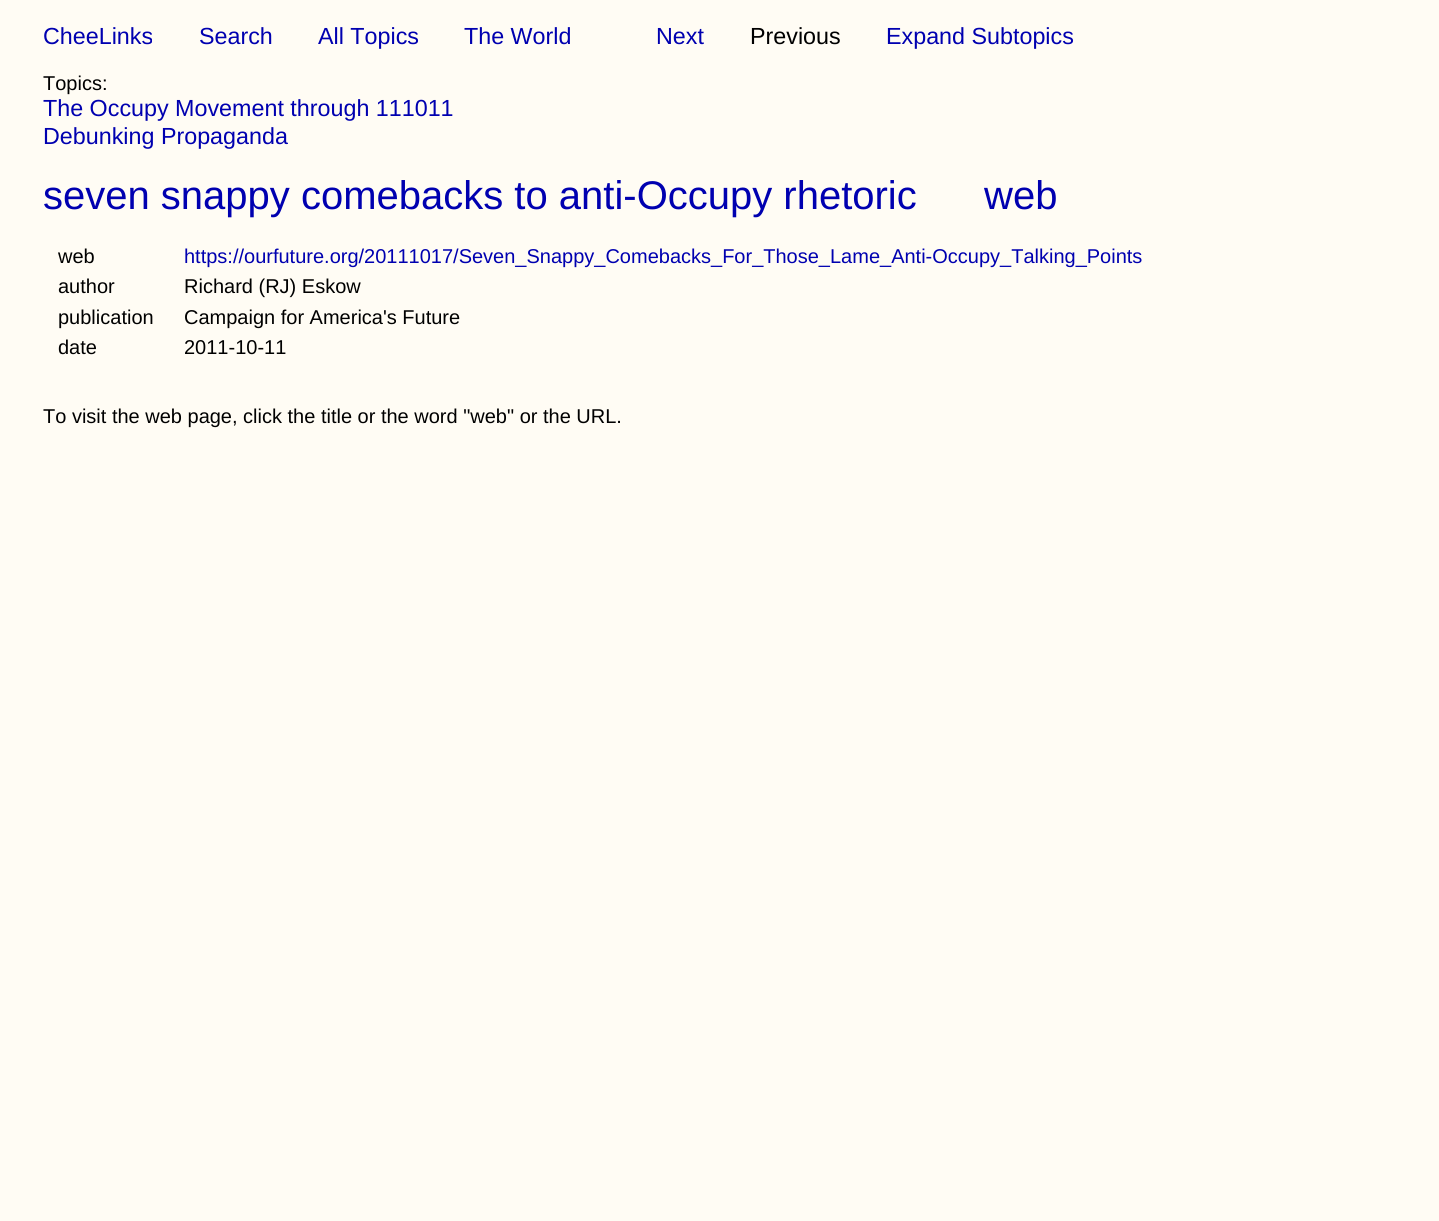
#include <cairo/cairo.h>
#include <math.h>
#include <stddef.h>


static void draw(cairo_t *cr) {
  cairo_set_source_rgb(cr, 1, 252 / 255.0, 244 / 255.0);
  cairo_paint(cr);
  cairo_select_font_face(cr, "Liberation Sans", CAIRO_FONT_SLANT_NORMAL, CAIRO_FONT_WEIGHT_NORMAL);
  cairo_set_font_size(cr, 23.3);
  cairo_set_source_rgb(cr, 0, 0, 176 / 255.0);
  cairo_move_to(cr, 43, 44);
  cairo_show_text(cr, "CheeLinks");
  cairo_move_to(cr, 199, 44);
  cairo_show_text(cr, "Search");
  cairo_move_to(cr, 318, 44);
  cairo_show_text(cr, "All Topics");
  cairo_move_to(cr, 464, 44);
  cairo_show_text(cr, "The World");
  cairo_move_to(cr, 656, 44);
  cairo_show_text(cr, "Next");
  cairo_set_source_rgb(cr, 0, 0, 0);
  cairo_move_to(cr, 750, 44);
  cairo_show_text(cr, "Previous");
  cairo_set_source_rgb(cr, 0, 0, 176 / 255.0);
  cairo_move_to(cr, 886, 44);
  cairo_show_text(cr, "Expand Subtopics");
  cairo_set_font_size(cr, 20);
  cairo_set_source_rgb(cr, 0, 0, 0);
  cairo_move_to(cr, 43, 90);
  cairo_show_text(cr, "Topics:");
  cairo_set_font_size(cr, 23.3);
  cairo_set_source_rgb(cr, 0, 0, 176 / 255.0);
  cairo_move_to(cr, 43, 116);
  cairo_show_text(cr, "The Occupy Movement through 111011");
  cairo_move_to(cr, 43, 144);
  cairo_show_text(cr, "Debunking Propaganda");
  cairo_set_font_size(cr, 40);
  cairo_move_to(cr, 43, 209);
  cairo_show_text(cr, "seven snappy comebacks to anti-Occupy rhetoric");
  cairo_move_to(cr, 984, 209);
  cairo_show_text(cr, "web");
  cairo_set_font_size(cr, 20);
  cairo_set_source_rgb(cr, 0, 0, 0);
  cairo_move_to(cr, 58, 263);
  cairo_show_text(cr, "web");
  cairo_set_source_rgb(cr, 0, 0, 176 / 255.0);
  cairo_move_to(cr, 184, 263);
  cairo_show_text(cr, "https://ourfuture.org/20111017/Seven_Snappy_Comebacks_For_Those_Lame_Anti-Occupy_Talking_Points");
  cairo_set_source_rgb(cr, 0, 0, 0);
  cairo_move_to(cr, 58, 293);
  cairo_show_text(cr, "author");
  cairo_move_to(cr, 184, 293);
  cairo_show_text(cr, "Richard (RJ) Eskow");
  cairo_move_to(cr, 58, 324);
  cairo_show_text(cr, "publication");
  cairo_move_to(cr, 184, 324);
  cairo_show_text(cr, "Campaign for America's Future");
  cairo_move_to(cr, 58, 354);
  cairo_show_text(cr, "date");
  cairo_move_to(cr, 184, 354);
  cairo_show_text(cr, "2011-10-11");
  cairo_move_to(cr, 43, 423);
  cairo_show_text(cr, "To visit the web page, click the title or the word \"web\" or the URL.");
}

int main(void) {
  cairo_surface_t *surface = cairo_image_surface_create(CAIRO_FORMAT_RGB24, 1439, 1221);
  cairo_t *cr = cairo_create(surface);
  cairo_font_options_t *options = cairo_font_options_create();
  cairo_font_options_set_hint_metrics(options, CAIRO_HINT_METRICS_OFF);
  cairo_font_options_set_hint_style(options, CAIRO_HINT_STYLE_NONE);
  cairo_set_font_options(cr, options);
  cairo_set_miter_limit(cr, 4);
  draw(cr);
  cairo_surface_write_to_png(surface, "out.png");
  cairo_font_options_destroy(options);
  cairo_destroy(cr);
  cairo_surface_destroy(surface);
  return 0;
}
